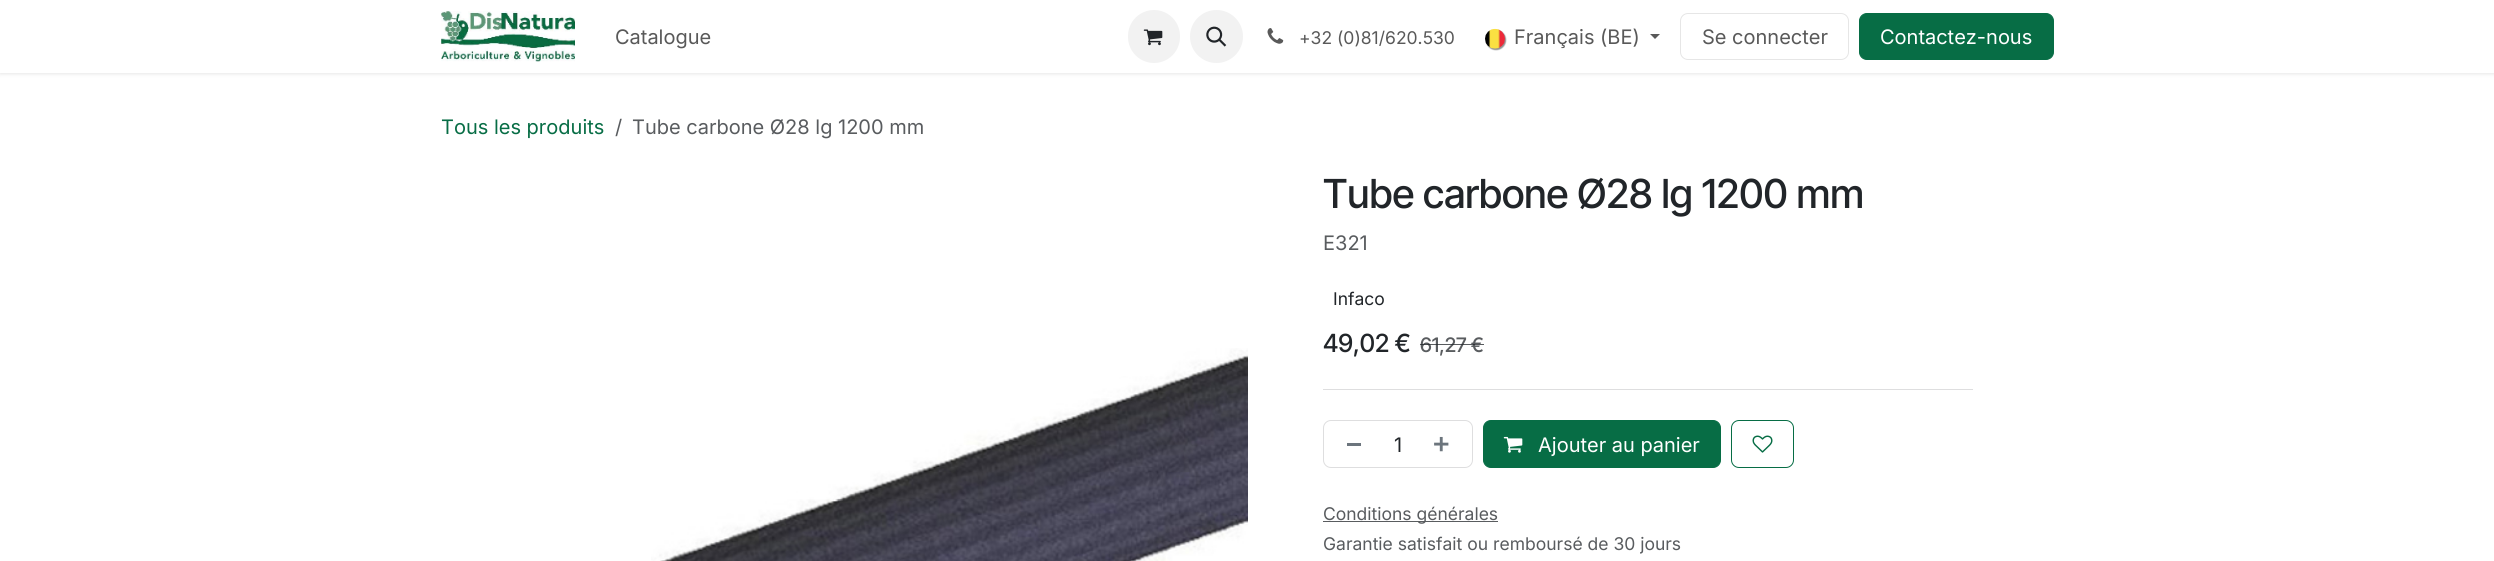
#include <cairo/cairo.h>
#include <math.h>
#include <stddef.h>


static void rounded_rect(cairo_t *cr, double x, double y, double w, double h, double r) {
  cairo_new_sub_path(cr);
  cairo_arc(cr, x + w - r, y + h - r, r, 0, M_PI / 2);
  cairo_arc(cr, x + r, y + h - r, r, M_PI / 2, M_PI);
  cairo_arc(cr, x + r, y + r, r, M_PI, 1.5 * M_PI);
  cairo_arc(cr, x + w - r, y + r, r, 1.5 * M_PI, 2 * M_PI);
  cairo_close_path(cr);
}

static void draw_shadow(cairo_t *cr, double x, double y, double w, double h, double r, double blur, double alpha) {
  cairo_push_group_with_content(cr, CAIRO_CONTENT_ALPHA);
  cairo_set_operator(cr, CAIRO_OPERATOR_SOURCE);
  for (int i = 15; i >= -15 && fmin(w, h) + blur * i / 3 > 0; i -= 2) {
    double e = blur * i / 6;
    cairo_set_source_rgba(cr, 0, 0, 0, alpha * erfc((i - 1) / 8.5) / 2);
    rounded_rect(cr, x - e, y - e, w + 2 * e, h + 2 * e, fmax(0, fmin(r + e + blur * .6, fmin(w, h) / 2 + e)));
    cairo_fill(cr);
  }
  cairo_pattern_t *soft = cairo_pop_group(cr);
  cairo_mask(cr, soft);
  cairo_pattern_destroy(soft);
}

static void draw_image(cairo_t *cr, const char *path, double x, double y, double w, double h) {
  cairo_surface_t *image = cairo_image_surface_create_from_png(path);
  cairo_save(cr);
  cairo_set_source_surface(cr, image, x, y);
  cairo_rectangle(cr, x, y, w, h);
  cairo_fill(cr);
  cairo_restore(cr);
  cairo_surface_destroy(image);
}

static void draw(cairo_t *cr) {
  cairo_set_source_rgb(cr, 1, 1, 1);
  cairo_paint(cr);
  cairo_set_source_rgb(cr, 0, 0, 0);
  draw_shadow(cr, 0, 1, 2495, 73, 0, 2, 0.1);
  cairo_set_source_rgb(cr, 1, 1, 1);
  cairo_rectangle(cr, 0, 0, 2494, 73);
  cairo_fill(cr);
  draw_image(cr, "images/1.png", 441, 11, 134, 51);
  cairo_set_source_rgb(cr, 242 / 255.0, 242 / 255.0, 242 / 255.0);
  rounded_rect(cr, 1128, 10, 52, 53, 26);
  cairo_fill(cr);
  draw_image(cr, "images/2.png", 1143, 29, 20, 17);
  cairo_arc(cr, 1216.5, 36.5, 26.5, 0, 2 * M_PI);
  cairo_fill(cr);
  draw_image(cr, "images/3.png", 1206, 26, 21, 21);
  draw_image(cr, "images/4.png", 1267, 28, 17, 16);
  cairo_set_source_rgb(cr, 0, 0, 0);
  draw_shadow(cr, 1486, 30, 20, 20, 10, 0.5, 0.43);
  draw_image(cr, "images/5.png", 1485, 28, 20, 21);
  cairo_set_source_rgb(cr, 89 / 255.0, 89 / 255.0, 89 / 255.0);
  cairo_new_path(cr);
  cairo_move_to(cr, 1650, 34);
  cairo_line_to(cr, 1660, 34);
  cairo_line_to(cr, 1655, 39);
  cairo_close_path(cr);
  cairo_fill(cr);
  rounded_rect(cr, 1680.5, 13.5, 168, 46, 7.5);
  cairo_set_source_rgb(cr, 230 / 255.0, 230 / 255.0, 230 / 255.0);
  cairo_set_line_width(cr, 1);
  cairo_stroke(cr);
  cairo_set_source_rgb(cr, 7 / 255.0, 109 / 255.0, 69 / 255.0);
  rounded_rect(cr, 1859.5, 13.5, 194, 46, 7.5);
  cairo_fill_preserve(cr);
  cairo_stroke(cr);
  draw_image(cr, "images/6.png", 651, 348, 597, 213);
  cairo_set_source_rgb(cr, 222 / 255.0, 222 / 255.0, 223 / 255.0);
  cairo_rectangle(cr, 1323, 389, 650, 1);
  cairo_fill(cr);
  rounded_rect(cr, 1323.5, 420.5, 149, 47, 7.5);
  cairo_stroke(cr);
  cairo_set_source_rgb(cr, 108 / 255.0, 117 / 255.0, 125 / 255.0);
  cairo_rectangle(cr, 1347, 443, 14, 3);
  cairo_fill(cr);
  draw_image(cr, "images/7.png", 1434, 436, 15, 16);
  cairo_set_source_rgb(cr, 7 / 255.0, 109 / 255.0, 69 / 255.0);
  rounded_rect(cr, 1483.5, 420.5, 237, 47, 7.5);
  cairo_fill_preserve(cr);
  cairo_stroke(cr);
  draw_image(cr, "images/8.png", 1503, 436, 20, 17);
  rounded_rect(cr, 1731.5, 420.5, 62, 47, 7.5);
  cairo_stroke(cr);
  draw_image(cr, "images/9.png", 1752, 435, 21, 18);
  cairo_set_source_rgb(cr, 89 / 255.0, 92 / 255.0, 95 / 255.0);
  cairo_rectangle(cr, 1323, 521, 175, 1);
  cairo_fill(cr);
  cairo_select_font_face(cr, "Inter", CAIRO_FONT_SLANT_NORMAL, CAIRO_FONT_WEIGHT_NORMAL);
  cairo_set_font_size(cr, 20);
  cairo_set_source_rgb(cr, 89 / 255.0, 89 / 255.0, 89 / 255.0);
  cairo_move_to(cr, 615, 44);
  cairo_show_text(cr, "Catalogue");
  cairo_set_font_size(cr, 17.5);
  cairo_move_to(cr, 1299, 44);
  cairo_show_text(cr, "+32 (0)81/620.530");
  cairo_set_font_size(cr, 20);
  cairo_move_to(cr, 1514, 44);
  cairo_show_text(cr, "Français (BE)");
  cairo_move_to(cr, 1702, 44);
  cairo_show_text(cr, "Se connecter");
  cairo_set_source_rgb(cr, 1, 1, 1);
  cairo_move_to(cr, 1880, 44);
  cairo_show_text(cr, "Contactez-nous");
  cairo_set_source_rgb(cr, 7 / 255.0, 109 / 255.0, 69 / 255.0);
  cairo_move_to(cr, 441, 134);
  cairo_show_text(cr, "Tous les produits");
  cairo_set_source_rgb(cr, 89 / 255.0, 92 / 255.0, 95 / 255.0);
  cairo_move_to(cr, 615, 134);
  cairo_show_text(cr, "/");
  cairo_move_to(cr, 632, 134);
  cairo_show_text(cr, "Tube carbone Ø28 lg 1200 mm");
  cairo_select_font_face(cr, "Inter Tight Medium", CAIRO_FONT_SLANT_NORMAL, CAIRO_FONT_WEIGHT_NORMAL);
  cairo_set_font_size(cr, 40);
  cairo_set_source_rgb(cr, 33 / 255.0, 37 / 255.0, 41 / 255.0);
  cairo_move_to(cr, 1323, 208);
  cairo_show_text(cr, "Tube carbone Ø28 lg 1200 mm");
  cairo_select_font_face(cr, "Inter", CAIRO_FONT_SLANT_NORMAL, CAIRO_FONT_WEIGHT_NORMAL);
  cairo_set_font_size(cr, 20);
  cairo_set_source_rgb(cr, 89 / 255.0, 92 / 255.0, 95 / 255.0);
  cairo_move_to(cr, 1323, 250);
  cairo_show_text(cr, "E321");
  cairo_set_font_size(cr, 17.5);
  cairo_set_source_rgb(cr, 33 / 255.0, 37 / 255.0, 41 / 255.0);
  cairo_move_to(cr, 1333, 305);
  cairo_show_text(cr, "Infaco");
  cairo_select_font_face(cr, "Inter Tight Medium", CAIRO_FONT_SLANT_NORMAL, CAIRO_FONT_WEIGHT_NORMAL);
  cairo_set_font_size(cr, 25);
  cairo_move_to(cr, 1323, 352);
  cairo_show_text(cr, "49,02 €");
  cairo_set_font_size(cr, 20);
  cairo_set_source_rgb(cr, 89 / 255.0, 92 / 255.0, 95 / 255.0);
  cairo_move_to(cr, 1420, 352);
  cairo_show_text(cr, "61,27 €");
  cairo_set_source_rgba(cr, 33 / 255.0, 37 / 255.0, 41 / 255.0, 0.75);
  cairo_rectangle(cr, 1420, 344, 46, 1);
  cairo_fill(cr);
  cairo_rectangle(cr, 1466, 344, 18, 1);
  cairo_fill(cr);
  cairo_select_font_face(cr, "Inter", CAIRO_FONT_SLANT_NORMAL, CAIRO_FONT_WEIGHT_NORMAL);
  cairo_set_source_rgb(cr, 33 / 255.0, 37 / 255.0, 41 / 255.0);
  cairo_move_to(cr, 1394, 452);
  cairo_show_text(cr, "1");
  cairo_set_source_rgb(cr, 1, 1, 1);
  cairo_move_to(cr, 1538, 452);
  cairo_show_text(cr, "Ajouter au panier");
  cairo_set_font_size(cr, 17.5);
  cairo_set_source_rgb(cr, 89 / 255.0, 92 / 255.0, 95 / 255.0);
  cairo_move_to(cr, 1323, 520);
  cairo_show_text(cr, "Conditions générales");
  cairo_move_to(cr, 1323, 550);
  cairo_show_text(cr, "Garantie satisfait ou remboursé de 30 jours");
}

int main(void) {
  cairo_surface_t *surface = cairo_image_surface_create(CAIRO_FORMAT_RGB24, 2494, 561);
  cairo_t *cr = cairo_create(surface);
  cairo_font_options_t *options = cairo_font_options_create();
  cairo_font_options_set_hint_metrics(options, CAIRO_HINT_METRICS_OFF);
  cairo_font_options_set_hint_style(options, CAIRO_HINT_STYLE_NONE);
  cairo_set_font_options(cr, options);
  cairo_set_miter_limit(cr, 4);
  draw(cr);
  cairo_surface_write_to_png(surface, "out.png");
  cairo_font_options_destroy(options);
  cairo_destroy(cr);
  cairo_surface_destroy(surface);
  return 0;
}
